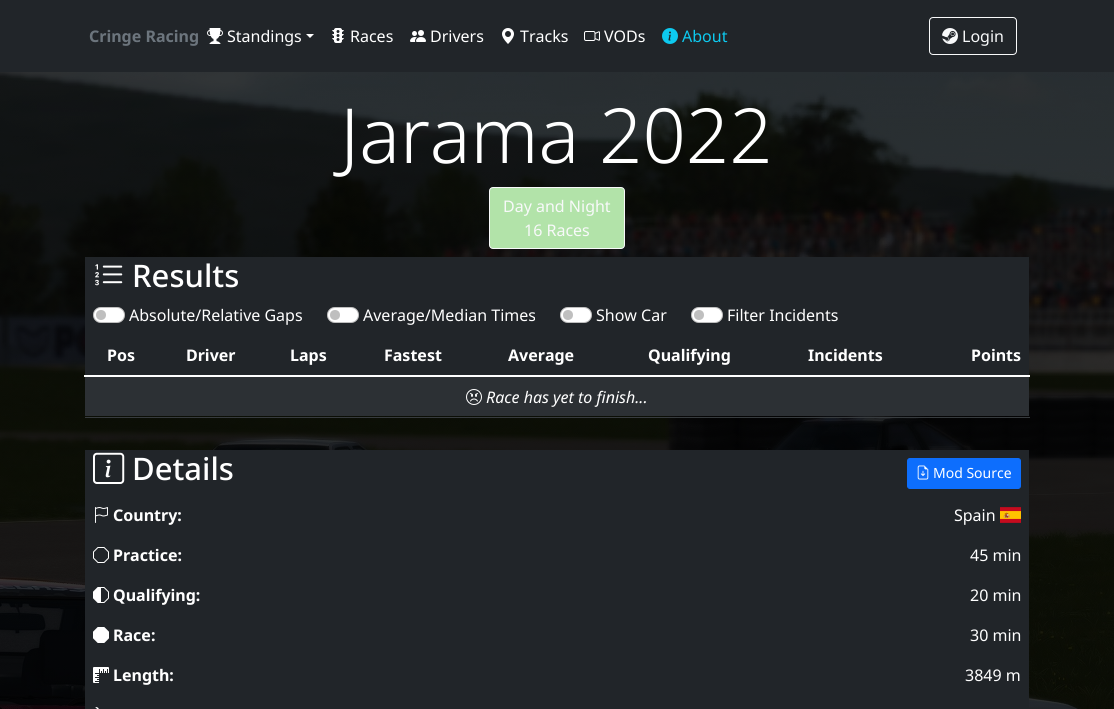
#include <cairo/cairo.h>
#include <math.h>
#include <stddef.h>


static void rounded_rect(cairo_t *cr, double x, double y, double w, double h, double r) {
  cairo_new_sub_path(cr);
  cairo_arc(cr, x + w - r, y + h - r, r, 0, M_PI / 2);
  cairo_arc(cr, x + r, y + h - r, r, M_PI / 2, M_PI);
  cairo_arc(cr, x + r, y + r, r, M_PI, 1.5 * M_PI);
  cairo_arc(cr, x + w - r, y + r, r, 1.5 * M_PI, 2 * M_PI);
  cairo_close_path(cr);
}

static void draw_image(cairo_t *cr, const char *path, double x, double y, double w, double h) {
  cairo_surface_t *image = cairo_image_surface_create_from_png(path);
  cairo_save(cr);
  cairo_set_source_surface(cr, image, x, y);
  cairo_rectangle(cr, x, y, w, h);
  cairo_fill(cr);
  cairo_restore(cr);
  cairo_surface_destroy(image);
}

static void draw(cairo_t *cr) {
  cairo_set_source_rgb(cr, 1, 1, 1);
  cairo_paint(cr);
  draw_image(cr, "images/1.png", 0, 72, 1114, 637);
  cairo_set_source_rgb(cr, 33 / 255.0, 37 / 255.0, 41 / 255.0);
  cairo_rectangle(cr, 0, 0, 1114, 72);
  cairo_fill(cr);
  draw_image(cr, "images/2.png", 207, 28, 16, 16);
  cairo_set_source_rgb(cr, 1, 1, 1);
  cairo_new_path(cr);
  cairo_move_to(cr, 306, 34);
  cairo_line_to(cr, 314, 34);
  cairo_line_to(cr, 310, 38);
  cairo_close_path(cr);
  cairo_fill(cr);
  draw_image(cr, "images/3.png", 332, 28, 12, 15);
  draw_image(cr, "images/4.png", 410, 30, 16, 12);
  draw_image(cr, "images/5.png", 502, 28, 12, 16);
  draw_image(cr, "images/6.png", 584, 31, 16, 10);
  draw_image(cr, "images/7.png", 662, 28, 16, 16);
  rounded_rect(cr, 929.5, 17.5, 87, 37, 3.5);
  cairo_set_source_rgb(cr, 248 / 255.0, 249 / 255.0, 250 / 255.0);
  cairo_set_line_width(cr, 1);
  cairo_stroke(cr);
  draw_image(cr, "images/8.png", 942, 28, 16, 16);
  cairo_set_source_rgb(cr, 178 / 255.0, 227 / 255.0, 169 / 255.0);
  rounded_rect(cr, 489.5, 187.5, 135, 61, 3.5);
  cairo_fill_preserve(cr);
  cairo_set_source_rgb(cr, 248 / 255.0, 249 / 255.0, 250 / 255.0);
  cairo_stroke(cr);
  cairo_set_source_rgb(cr, 33 / 255.0, 37 / 255.0, 41 / 255.0);
  cairo_rectangle(cr, 85, 257, 944, 78);
  cairo_fill(cr);
  draw_image(cr, "images/9.png", 95, 264, 28, 22);
  cairo_set_source_rgb(cr, 1, 1, 1);
  rounded_rect(cr, 93, 307, 32, 16, 8);
  cairo_fill(cr);
  cairo_set_source_rgb(cr, 191 / 255.0, 191 / 255.0, 191 / 255.0);
  cairo_arc(cr, 101, 315, 5, 0, 2 * M_PI);
  cairo_fill(cr);
  rounded_rect(cr, 93.5, 307.5, 31, 15, 7.5);
  cairo_set_source_rgba(cr, 0, 0, 0, 0.25);
  cairo_stroke(cr);
  cairo_set_source_rgb(cr, 1, 1, 1);
  rounded_rect(cr, 327, 307, 32, 16, 8);
  cairo_fill(cr);
  cairo_set_source_rgb(cr, 191 / 255.0, 191 / 255.0, 191 / 255.0);
  cairo_arc(cr, 335, 315, 5, 0, 2 * M_PI);
  cairo_fill(cr);
  rounded_rect(cr, 327.5, 307.5, 31, 15, 7.5);
  cairo_set_source_rgba(cr, 0, 0, 0, 0.25);
  cairo_stroke(cr);
  cairo_set_source_rgb(cr, 1, 1, 1);
  rounded_rect(cr, 560, 307, 32, 16, 8);
  cairo_fill(cr);
  cairo_set_source_rgb(cr, 191 / 255.0, 191 / 255.0, 191 / 255.0);
  cairo_arc(cr, 568, 315, 5, 0, 2 * M_PI);
  cairo_fill(cr);
  rounded_rect(cr, 560.5, 307.5, 31, 15, 7.5);
  cairo_set_source_rgba(cr, 0, 0, 0, 0.25);
  cairo_stroke(cr);
  cairo_set_source_rgb(cr, 1, 1, 1);
  rounded_rect(cr, 691, 307, 32, 16, 8);
  cairo_fill(cr);
  cairo_set_source_rgb(cr, 191 / 255.0, 191 / 255.0, 191 / 255.0);
  cairo_arc(cr, 699, 315, 5, 0, 2 * M_PI);
  cairo_fill(cr);
  rounded_rect(cr, 691.5, 307.5, 31, 15, 7.5);
  cairo_set_source_rgba(cr, 0, 0, 0, 0.25);
  cairo_stroke(cr);
  cairo_set_source_rgb(cr, 33 / 255.0, 37 / 255.0, 41 / 255.0);
  cairo_rectangle(cr, 85, 335, 944, 40);
  cairo_fill(cr);
  cairo_set_source_rgb(cr, 1, 1, 1);
  cairo_rectangle(cr, 84, 375, 946, 2);
  cairo_fill(cr);
  cairo_set_source_rgb(cr, 44 / 255.0, 48 / 255.0, 52 / 255.0);
  cairo_rectangle(cr, 85, 377, 944, 39);
  cairo_fill(cr);
  cairo_set_source_rgb(cr, 55 / 255.0, 59 / 255.0, 62 / 255.0);
  cairo_rectangle(cr, 85, 417, 945, 1);
  cairo_fill(cr);
  draw_image(cr, "images/10.png", 466, 389, 16, 16);
  cairo_set_source_rgb(cr, 33 / 255.0, 37 / 255.0, 41 / 255.0);
  cairo_rectangle(cr, 85, 450, 944, 259);
  cairo_fill(cr);
  draw_image(cr, "images/11.png", 93, 452, 32, 32);
  cairo_set_source_rgb(cr, 13 / 255.0, 110 / 255.0, 253 / 255.0);
  rounded_rect(cr, 907.5, 458.5, 113, 30, 2.5);
  cairo_fill_preserve(cr);
  cairo_stroke(cr);
  draw_image(cr, "images/12.png", 917, 465, 12, 15);
  draw_image(cr, "images/13.png", 95, 507, 13, 16);
  draw_image(cr, "images/14.png", 1000, 507, 21, 16);
  draw_image(cr, "images/15.png", 93, 547, 16, 16);
  draw_image(cr, "images/16.png", 93, 587, 16, 16);
  draw_image(cr, "images/17.png", 93, 627, 16, 16);
  draw_image(cr, "images/18.png", 93, 667, 16, 16);
  draw_image(cr, "images/19.png", 95, 707, 4, 2);
  cairo_select_font_face(cr, "Noto Sans", CAIRO_FONT_SLANT_NORMAL, CAIRO_FONT_WEIGHT_BOLD);
  cairo_set_font_size(cr, 16);
  cairo_set_source_rgb(cr, 108 / 255.0, 117 / 255.0, 125 / 255.0);
  cairo_move_to(cr, 89, 42);
  cairo_show_text(cr, "Cringe Racing");
  cairo_select_font_face(cr, "Noto Sans", CAIRO_FONT_SLANT_NORMAL, CAIRO_FONT_WEIGHT_NORMAL);
  cairo_set_source_rgb(cr, 1, 1, 1);
  cairo_move_to(cr, 227, 42);
  cairo_show_text(cr, "Standings");
  cairo_move_to(cr, 350, 42);
  cairo_show_text(cr, "Races");
  cairo_move_to(cr, 430, 42);
  cairo_show_text(cr, "Drivers");
  cairo_move_to(cr, 520, 42);
  cairo_show_text(cr, "Tracks");
  cairo_move_to(cr, 604, 42);
  cairo_show_text(cr, "VODs");
  cairo_set_source_rgb(cr, 13 / 255.0, 202 / 255.0, 240 / 255.0);
  cairo_move_to(cr, 682, 42);
  cairo_show_text(cr, "About");
  cairo_set_source_rgb(cr, 248 / 255.0, 249 / 255.0, 250 / 255.0);
  cairo_move_to(cr, 962, 42);
  cairo_show_text(cr, "Login");
  cairo_select_font_face(cr, "Noto Sans Light", CAIRO_FONT_SLANT_NORMAL, CAIRO_FONT_WEIGHT_NORMAL);
  cairo_set_font_size(cr, 76);
  cairo_set_source_rgb(cr, 1, 1, 1);
  cairo_move_to(cr, 340, 163);
  cairo_show_text(cr, "Jarama 2022");
  cairo_select_font_face(cr, "Noto Sans", CAIRO_FONT_SLANT_NORMAL, CAIRO_FONT_WEIGHT_NORMAL);
  cairo_set_font_size(cr, 16);
  cairo_set_source_rgb(cr, 248 / 255.0, 249 / 255.0, 250 / 255.0);
  cairo_move_to(cr, 503, 212);
  cairo_show_text(cr, "Day and Night");
  cairo_move_to(cr, 524, 236);
  cairo_show_text(cr, "16 Races");
  cairo_select_font_face(cr, "Noto Sans Medium", CAIRO_FONT_SLANT_NORMAL, CAIRO_FONT_WEIGHT_NORMAL);
  cairo_set_font_size(cr, 31);
  cairo_set_source_rgb(cr, 1, 1, 1);
  cairo_move_to(cr, 132, 287);
  cairo_show_text(cr, "Results");
  cairo_select_font_face(cr, "Noto Sans", CAIRO_FONT_SLANT_NORMAL, CAIRO_FONT_WEIGHT_NORMAL);
  cairo_set_font_size(cr, 16);
  cairo_move_to(cr, 129, 321);
  cairo_show_text(cr, "Absolute/Relative Gaps");
  cairo_move_to(cr, 363, 321);
  cairo_show_text(cr, "Average/Median Times");
  cairo_move_to(cr, 596, 321);
  cairo_show_text(cr, "Show Car");
  cairo_move_to(cr, 727, 321);
  cairo_show_text(cr, "Filter Incidents");
  cairo_select_font_face(cr, "Noto Sans", CAIRO_FONT_SLANT_NORMAL, CAIRO_FONT_WEIGHT_BOLD);
  cairo_move_to(cr, 107, 361);
  cairo_show_text(cr, "Pos");
  cairo_move_to(cr, 186, 361);
  cairo_show_text(cr, "Driver");
  cairo_move_to(cr, 290, 361);
  cairo_show_text(cr, "Laps");
  cairo_move_to(cr, 384, 361);
  cairo_show_text(cr, "Fastest");
  cairo_move_to(cr, 508, 361);
  cairo_show_text(cr, "Average");
  cairo_move_to(cr, 648, 361);
  cairo_show_text(cr, "Qualifying");
  cairo_move_to(cr, 808, 361);
  cairo_show_text(cr, "Incidents");
  cairo_move_to(cr, 971, 361);
  cairo_show_text(cr, "Points");
  cairo_select_font_face(cr, "Noto Sans", CAIRO_FONT_SLANT_ITALIC, CAIRO_FONT_WEIGHT_NORMAL);
  cairo_move_to(cr, 486, 403);
  cairo_show_text(cr, "Race has yet to finish...");
  cairo_select_font_face(cr, "Noto Sans Medium", CAIRO_FONT_SLANT_NORMAL, CAIRO_FONT_WEIGHT_NORMAL);
  cairo_set_font_size(cr, 31);
  cairo_move_to(cr, 132, 480);
  cairo_show_text(cr, "Details");
  cairo_select_font_face(cr, "Noto Sans", CAIRO_FONT_SLANT_NORMAL, CAIRO_FONT_WEIGHT_NORMAL);
  cairo_set_font_size(cr, 14);
  cairo_move_to(cr, 933, 478);
  cairo_show_text(cr, "Mod Source");
  cairo_select_font_face(cr, "Noto Sans", CAIRO_FONT_SLANT_NORMAL, CAIRO_FONT_WEIGHT_BOLD);
  cairo_set_font_size(cr, 16);
  cairo_move_to(cr, 113, 521);
  cairo_show_text(cr, "Country:");
  cairo_select_font_face(cr, "Noto Sans", CAIRO_FONT_SLANT_NORMAL, CAIRO_FONT_WEIGHT_NORMAL);
  cairo_move_to(cr, 954, 521);
  cairo_show_text(cr, "Spain");
  cairo_select_font_face(cr, "Noto Sans", CAIRO_FONT_SLANT_NORMAL, CAIRO_FONT_WEIGHT_BOLD);
  cairo_move_to(cr, 113, 561);
  cairo_show_text(cr, "Practice:");
  cairo_select_font_face(cr, "Noto Sans", CAIRO_FONT_SLANT_NORMAL, CAIRO_FONT_WEIGHT_NORMAL);
  cairo_move_to(cr, 970, 561);
  cairo_show_text(cr, "45 min");
  cairo_select_font_face(cr, "Noto Sans", CAIRO_FONT_SLANT_NORMAL, CAIRO_FONT_WEIGHT_BOLD);
  cairo_move_to(cr, 113, 601);
  cairo_show_text(cr, "Qualifying:");
  cairo_select_font_face(cr, "Noto Sans", CAIRO_FONT_SLANT_NORMAL, CAIRO_FONT_WEIGHT_NORMAL);
  cairo_move_to(cr, 970, 601);
  cairo_show_text(cr, "20 min");
  cairo_select_font_face(cr, "Noto Sans", CAIRO_FONT_SLANT_NORMAL, CAIRO_FONT_WEIGHT_BOLD);
  cairo_move_to(cr, 113, 641);
  cairo_show_text(cr, "Race:");
  cairo_select_font_face(cr, "Noto Sans", CAIRO_FONT_SLANT_NORMAL, CAIRO_FONT_WEIGHT_NORMAL);
  cairo_move_to(cr, 970, 641);
  cairo_show_text(cr, "30 min");
  cairo_select_font_face(cr, "Noto Sans", CAIRO_FONT_SLANT_NORMAL, CAIRO_FONT_WEIGHT_BOLD);
  cairo_move_to(cr, 113, 681);
  cairo_show_text(cr, "Length:");
  cairo_select_font_face(cr, "Noto Sans", CAIRO_FONT_SLANT_NORMAL, CAIRO_FONT_WEIGHT_NORMAL);
  cairo_move_to(cr, 965, 681);
  cairo_show_text(cr, "3849 m");
}

int main(void) {
  cairo_surface_t *surface = cairo_image_surface_create(CAIRO_FORMAT_RGB24, 1114, 709);
  cairo_t *cr = cairo_create(surface);
  cairo_font_options_t *options = cairo_font_options_create();
  cairo_font_options_set_hint_metrics(options, CAIRO_HINT_METRICS_OFF);
  cairo_font_options_set_hint_style(options, CAIRO_HINT_STYLE_NONE);
  cairo_set_font_options(cr, options);
  cairo_set_miter_limit(cr, 4);
  draw(cr);
  cairo_surface_write_to_png(surface, "out.png");
  cairo_font_options_destroy(options);
  cairo_destroy(cr);
  cairo_surface_destroy(surface);
  return 0;
}
